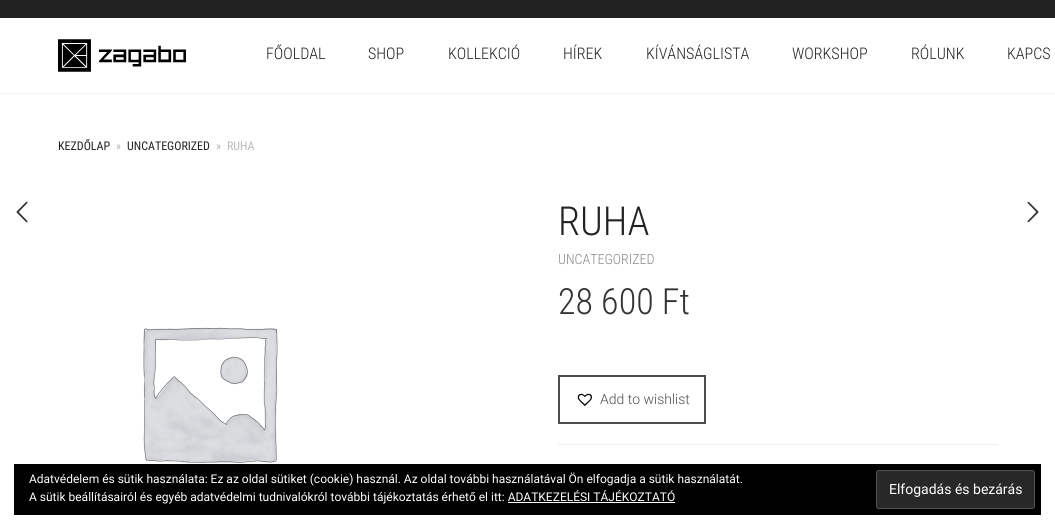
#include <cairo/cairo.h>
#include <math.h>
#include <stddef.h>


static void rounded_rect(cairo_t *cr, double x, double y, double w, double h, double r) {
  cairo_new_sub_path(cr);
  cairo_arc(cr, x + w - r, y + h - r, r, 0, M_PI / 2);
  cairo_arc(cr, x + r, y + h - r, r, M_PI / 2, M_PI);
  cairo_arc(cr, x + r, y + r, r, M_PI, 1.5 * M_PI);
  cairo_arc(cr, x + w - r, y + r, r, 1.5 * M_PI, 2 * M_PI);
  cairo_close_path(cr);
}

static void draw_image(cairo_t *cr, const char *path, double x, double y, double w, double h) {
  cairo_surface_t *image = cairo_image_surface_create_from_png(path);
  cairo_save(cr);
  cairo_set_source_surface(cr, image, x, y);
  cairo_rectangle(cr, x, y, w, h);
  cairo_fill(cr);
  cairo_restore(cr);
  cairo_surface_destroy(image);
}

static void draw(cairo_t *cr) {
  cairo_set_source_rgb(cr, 1, 1, 1);
  cairo_paint(cr);
  cairo_set_source_rgb(cr, 242 / 255.0, 242 / 255.0, 242 / 255.0);
  cairo_rectangle(cr, 0, 93, 1055, 1);
  cairo_fill(cr);
  cairo_set_source_rgb(cr, 34 / 255.0, 34 / 255.0, 34 / 255.0);
  cairo_rectangle(cr, 0, 0, 1055, 18);
  cairo_fill(cr);
  draw_image(cr, "images/1.png", 58, 39, 128, 33);
  draw_image(cr, "images/2.png", 16, 201, 12, 22);
  draw_image(cr, "images/3.png", 1027, 201, 12, 22);
  draw_image(cr, "images/4.png", 143, 327, 135, 136);
  cairo_rectangle(cr, 559, 376, 146, 47);
  cairo_set_source_rgb(cr, 77 / 255.0, 77 / 255.0, 77 / 255.0);
  cairo_stroke(cr);
  draw_image(cr, "images/5.png", 577, 393, 15, 13);
  cairo_set_source_rgb(cr, 238 / 255.0, 238 / 255.0, 238 / 255.0);
  cairo_rectangle(cr, 558, 444, 440, 1);
  cairo_fill(cr);
  cairo_set_source_rgb(cr, 0, 0, 0);
  cairo_rectangle(cr, 14, 464, 1027, 51);
  cairo_fill(cr);
  cairo_set_source_rgb(cr, 40 / 255.0, 40 / 255.0, 40 / 255.0);
  rounded_rect(cr, 876.5, 470.5, 158, 38, 2.5);
  cairo_fill_preserve(cr);
  cairo_set_source_rgb(cr, 83 / 255.0, 83 / 255.0, 83 / 255.0);
  cairo_set_line_width(cr, 1);
  cairo_stroke(cr);
  cairo_set_source_rgb(cr, 1, 1, 1);
  cairo_rectangle(cr, 508, 502, 167, 1);
  cairo_fill(cr);
  cairo_select_font_face(cr, "Roboto Condensed Light", CAIRO_FONT_SLANT_NORMAL, CAIRO_FONT_WEIGHT_NORMAL);
  cairo_set_font_size(cr, 16);
  cairo_set_source_rgb(cr, 34 / 255.0, 34 / 255.0, 34 / 255.0);
  cairo_move_to(cr, 266, 59);
  cairo_show_text(cr, "FŐOLDAL");
  cairo_move_to(cr, 368, 59);
  cairo_show_text(cr, "SHOP");
  cairo_move_to(cr, 448, 59);
  cairo_show_text(cr, "KOLLEKCIÓ");
  cairo_move_to(cr, 563, 59);
  cairo_show_text(cr, "HÍREK");
  cairo_move_to(cr, 646, 59);
  cairo_show_text(cr, "KÍVÁNSÁGLISTA");
  cairo_move_to(cr, 792, 59);
  cairo_show_text(cr, "WORKSHOP");
  cairo_move_to(cr, 911, 59);
  cairo_show_text(cr, "RÓLUNK");
  cairo_move_to(cr, 1007, 59);
  cairo_show_text(cr, "KAPCS");
  cairo_select_font_face(cr, "Roboto Condensed", CAIRO_FONT_SLANT_NORMAL, CAIRO_FONT_WEIGHT_NORMAL);
  cairo_set_font_size(cr, 12);
  cairo_move_to(cr, 58, 150);
  cairo_show_text(cr, "KEZDŐLAP");
  cairo_set_source_rgb(cr, 179 / 255.0, 179 / 255.0, 179 / 255.0);
  cairo_move_to(cr, 116, 150);
  cairo_show_text(cr, "»");
  cairo_set_source_rgb(cr, 34 / 255.0, 34 / 255.0, 34 / 255.0);
  cairo_move_to(cr, 127, 150);
  cairo_show_text(cr, "UNCATEGORIZED");
  cairo_set_source_rgb(cr, 179 / 255.0, 179 / 255.0, 179 / 255.0);
  cairo_move_to(cr, 216, 150);
  cairo_show_text(cr, "»");
  cairo_set_source_rgb(cr, 187 / 255.0, 187 / 255.0, 187 / 255.0);
  cairo_move_to(cr, 227, 150);
  cairo_show_text(cr, "RUHA");
  cairo_select_font_face(cr, "Roboto Condensed Light", CAIRO_FONT_SLANT_NORMAL, CAIRO_FONT_WEIGHT_NORMAL);
  cairo_set_font_size(cr, 40);
  cairo_set_source_rgb(cr, 34 / 255.0, 34 / 255.0, 34 / 255.0);
  cairo_move_to(cr, 558, 235);
  cairo_show_text(cr, "RUHA");
  cairo_set_font_size(cr, 14);
  cairo_set_source_rgb(cr, 136 / 255.0, 136 / 255.0, 136 / 255.0);
  cairo_move_to(cr, 558, 264);
  cairo_show_text(cr, "UNCATEGORIZED");
  cairo_set_font_size(cr, 36);
  cairo_set_source_rgb(cr, 51 / 255.0, 51 / 255.0, 51 / 255.0);
  cairo_move_to(cr, 558, 314);
  cairo_show_text(cr, "28 600 Ft");
  cairo_select_font_face(cr, "Roboto Light", CAIRO_FONT_SLANT_NORMAL, CAIRO_FONT_WEIGHT_NORMAL);
  cairo_set_font_size(cr, 14);
  cairo_set_source_rgb(cr, 77 / 255.0, 77 / 255.0, 77 / 255.0);
  cairo_move_to(cr, 600, 404);
  cairo_show_text(cr, "Add to wishlist");
  cairo_select_font_face(cr, "Roboto", CAIRO_FONT_SLANT_NORMAL, CAIRO_FONT_WEIGHT_NORMAL);
  cairo_set_font_size(cr, 12);
  cairo_set_source_rgb(cr, 1, 1, 1);
  cairo_move_to(cr, 29, 483);
  cairo_show_text(cr, "Adatvédelem és sütik használata: Ez az oldal sütiket (cookie) használ. Az oldal további használatával Ön elfogadja a sütik használatát.");
  cairo_move_to(cr, 29, 501);
  cairo_show_text(cr, "A sütik beállításairól és egyéb adatvédelmi tudnivalókról további tájékoztatás érhető el itt: ADATKEZELÉSI TÁJÉKOZTATÓ");
  cairo_set_font_size(cr, 14);
  cairo_move_to(cr, 889, 494);
  cairo_show_text(cr, "Elfogadás és bezárás");
}

int main(void) {
  cairo_surface_t *surface = cairo_image_surface_create(CAIRO_FORMAT_RGB24, 1055, 529);
  cairo_t *cr = cairo_create(surface);
  cairo_font_options_t *options = cairo_font_options_create();
  cairo_font_options_set_hint_metrics(options, CAIRO_HINT_METRICS_OFF);
  cairo_font_options_set_hint_style(options, CAIRO_HINT_STYLE_NONE);
  cairo_set_font_options(cr, options);
  cairo_set_miter_limit(cr, 4);
  draw(cr);
  cairo_surface_write_to_png(surface, "out.png");
  cairo_font_options_destroy(options);
  cairo_destroy(cr);
  cairo_surface_destroy(surface);
  return 0;
}
